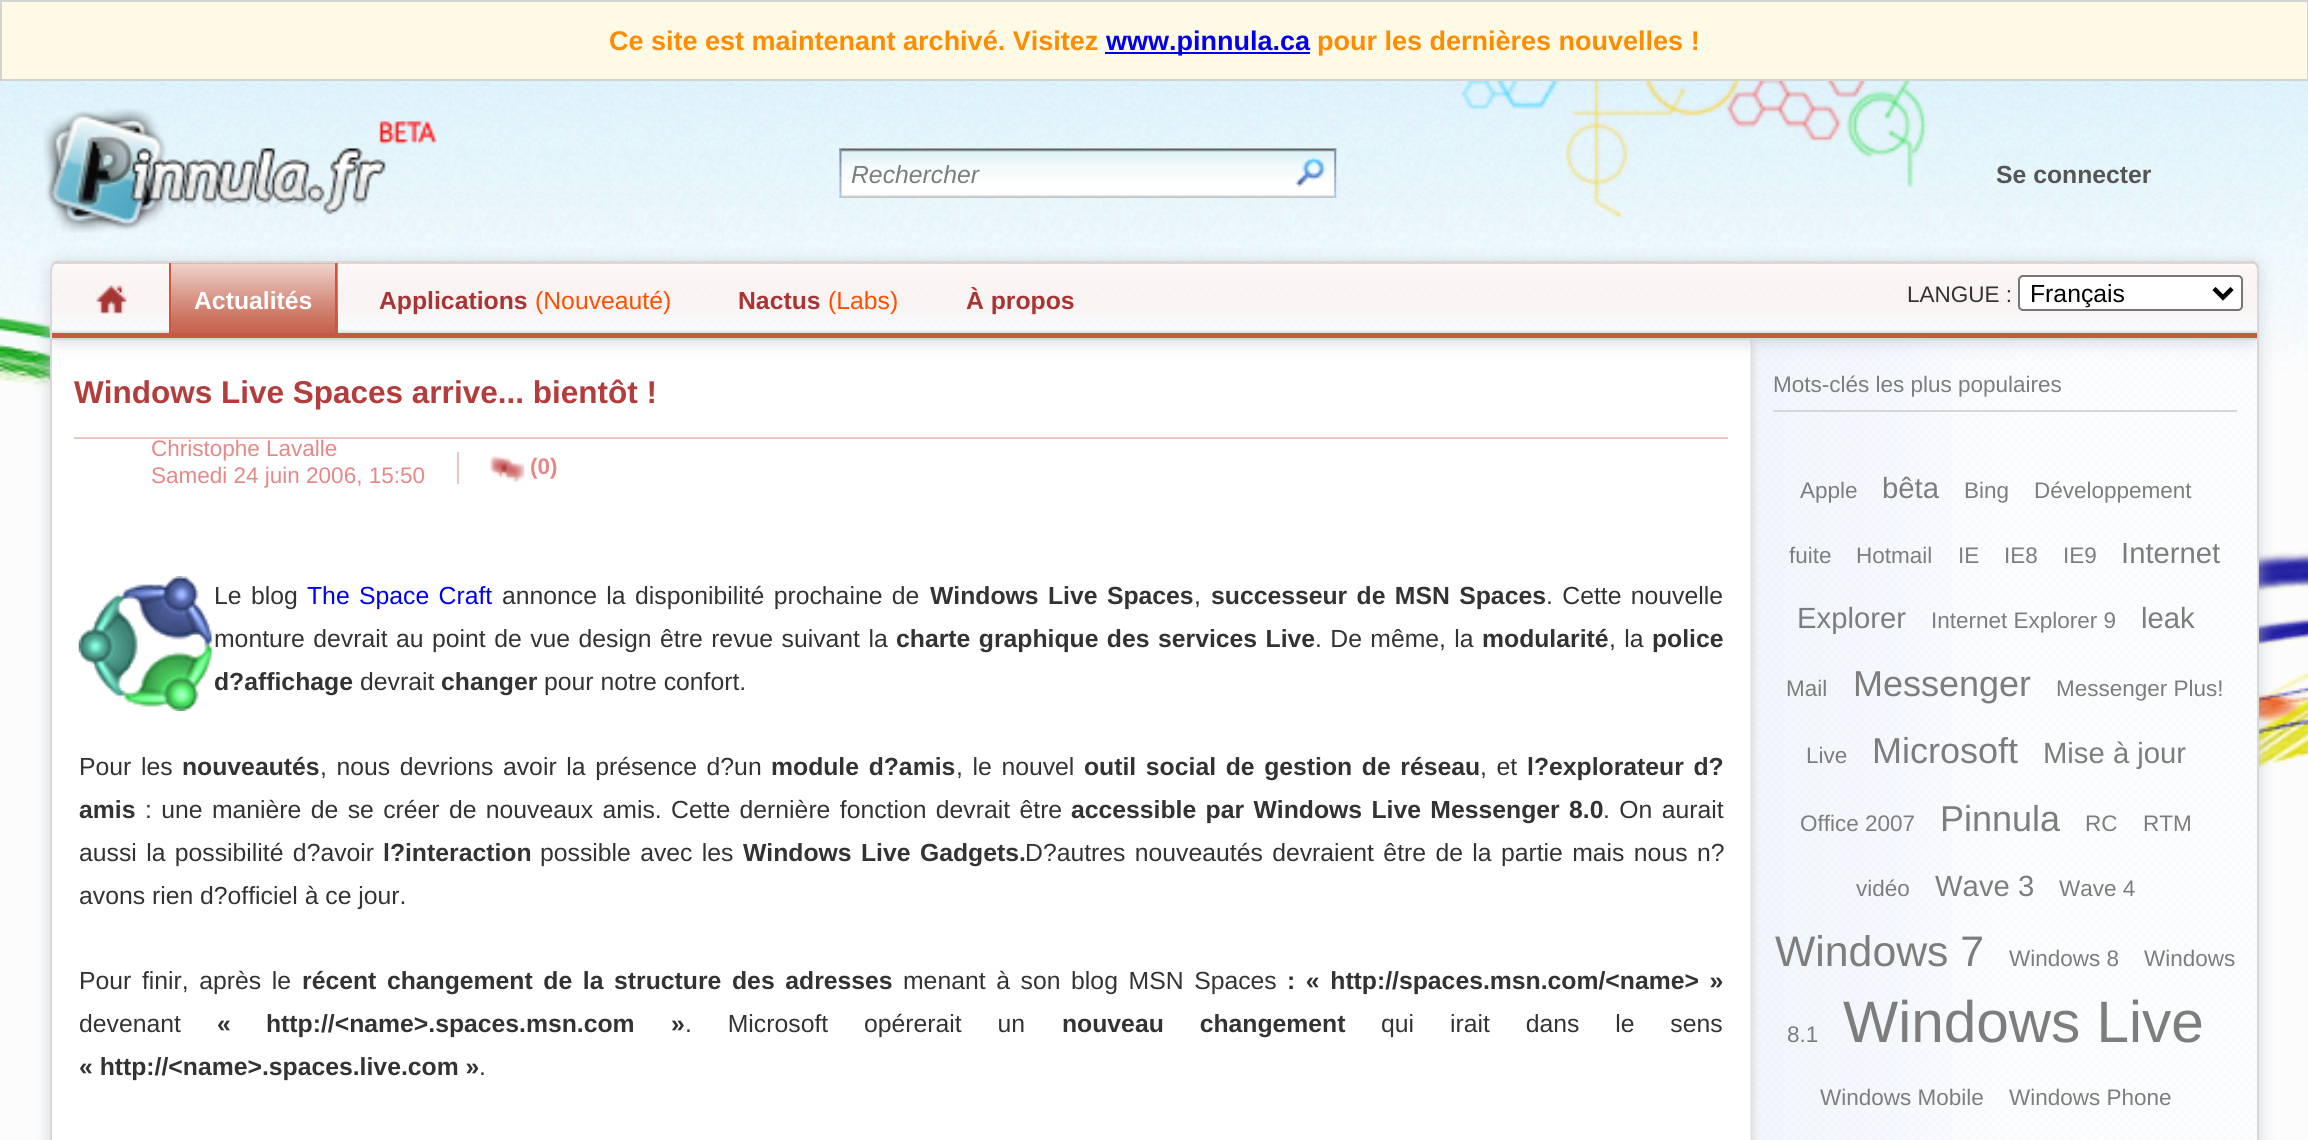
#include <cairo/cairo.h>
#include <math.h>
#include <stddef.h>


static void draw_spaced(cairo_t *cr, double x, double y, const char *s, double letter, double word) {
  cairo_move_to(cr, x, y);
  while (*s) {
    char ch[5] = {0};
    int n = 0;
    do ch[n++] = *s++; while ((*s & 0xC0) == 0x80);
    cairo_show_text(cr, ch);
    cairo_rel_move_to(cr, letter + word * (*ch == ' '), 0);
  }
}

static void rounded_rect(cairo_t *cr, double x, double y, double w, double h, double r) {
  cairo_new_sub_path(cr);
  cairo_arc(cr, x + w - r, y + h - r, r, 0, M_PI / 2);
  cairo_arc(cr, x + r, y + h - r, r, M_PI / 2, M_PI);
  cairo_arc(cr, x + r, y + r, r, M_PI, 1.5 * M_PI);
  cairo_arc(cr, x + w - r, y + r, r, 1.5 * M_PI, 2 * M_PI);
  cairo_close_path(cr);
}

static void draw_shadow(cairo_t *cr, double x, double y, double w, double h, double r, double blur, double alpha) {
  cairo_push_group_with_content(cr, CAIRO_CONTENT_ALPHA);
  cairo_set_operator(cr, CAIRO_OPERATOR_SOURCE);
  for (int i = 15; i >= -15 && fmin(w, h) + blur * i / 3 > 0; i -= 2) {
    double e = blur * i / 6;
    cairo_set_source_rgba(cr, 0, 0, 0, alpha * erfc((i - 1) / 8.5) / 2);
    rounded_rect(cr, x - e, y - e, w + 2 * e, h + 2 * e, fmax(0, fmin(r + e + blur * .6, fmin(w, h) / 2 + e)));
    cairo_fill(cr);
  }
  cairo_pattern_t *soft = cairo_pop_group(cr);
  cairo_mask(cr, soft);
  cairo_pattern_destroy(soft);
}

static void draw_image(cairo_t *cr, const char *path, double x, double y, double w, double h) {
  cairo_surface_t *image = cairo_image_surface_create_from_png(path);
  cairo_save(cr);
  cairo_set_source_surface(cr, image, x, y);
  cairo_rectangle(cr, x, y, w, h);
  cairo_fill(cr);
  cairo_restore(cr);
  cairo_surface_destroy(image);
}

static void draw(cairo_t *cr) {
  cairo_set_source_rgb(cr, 252 / 255.0, 252 / 255.0, 252 / 255.0);
  cairo_paint(cr);
  draw_image(cr, "images/1.png", 0, 81, 2308, 290);
  cairo_set_source_rgb(cr, 1, 250 / 255.0, 229 / 255.0);
  cairo_rectangle(cr, 1, 1, 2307, 79);
  cairo_fill_preserve(cr);
  cairo_set_source_rgb(cr, 211 / 255.0, 211 / 255.0, 211 / 255.0);
  cairo_stroke(cr);
  cairo_set_source_rgb(cr, 0, 0, 238 / 255.0);
  cairo_rectangle(cr, 1105, 52, 205, 2);
  cairo_fill(cr);
  draw_image(cr, "images/2.png", 0, 81, 2308, 690);
  draw_image(cr, "images/3.png", 43, 108, 394, 125);
  draw_image(cr, "images/4.png", 839, 148, 498, 50);
  draw_image(cr, "images/5.png", 839, 148, 3, 50);
  draw_image(cr, "images/6.png", 1295, 157, 31, 31);
  draw_image(cr, "images/7.png", 1334, 148, 3, 50);
  cairo_set_source_rgb(cr, 188 / 255.0, 199 / 255.0, 212 / 255.0);
  draw_shadow(cr, 50, 340, 2209, 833, 9, 8, 0.7);
  cairo_set_source_rgb(cr, 1, 1, 1);
  cairo_rectangle(cr, 52, 340, 2205, 800);
  cairo_fill(cr);
  draw_image(cr, "images/11.png", 1750, 340, 507, 800);
  cairo_set_source_rgb(cr, 216 / 255.0, 216 / 255.0, 216 / 255.0);
  cairo_set_fill_rule(cr, CAIRO_FILL_RULE_EVEN_ODD);
  cairo_new_path(cr);
  cairo_move_to(cr, 50, 340);
  cairo_line_to(cr, 2259, 340);
  cairo_line_to(cr, 2259, 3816);
  cairo_curve_to(cr, 2259, 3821, 2255, 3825, 2250, 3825);
  cairo_line_to(cr, 58, 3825);
  cairo_curve_to(cr, 54, 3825, 50, 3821, 50, 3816);
  cairo_close_path(cr);
  cairo_move_to(cr, 52, 340);
  cairo_line_to(cr, 2257, 340);
  cairo_line_to(cr, 2257, 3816);
  cairo_curve_to(cr, 2257, 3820, 2254, 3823, 2250, 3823);
  cairo_line_to(cr, 58, 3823);
  cairo_curve_to(cr, 55, 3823, 52, 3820, 52, 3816);
  cairo_close_path(cr);
  cairo_fill(cr);
  cairo_set_source_rgb(cr, 188 / 255.0, 199 / 255.0, 212 / 255.0);
  draw_shadow(cr, 50, 263, 2209, 79, 9, 8, 0.7);
  cairo_set_source_rgb(cr, 195 / 255.0, 91 / 255.0, 68 / 255.0);
  cairo_new_path(cr);
  cairo_move_to(cr, 59, 261);
  cairo_line_to(cr, 2250, 261);
  cairo_curve_to(cr, 2255, 261, 2259, 265, 2259, 270);
  cairo_line_to(cr, 2259, 340);
  cairo_line_to(cr, 50, 340);
  cairo_line_to(cr, 50, 270);
  cairo_curve_to(cr, 50, 265, 54, 261, 59, 261);
  cairo_close_path(cr);
  cairo_fill(cr);
  draw_image(cr, "images/8.png", 49, 263, 2210, 70);
  cairo_new_path(cr);
  cairo_move_to(cr, 59, 262);
  cairo_line_to(cr, 2250, 262);
  cairo_curve_to(cr, 2254.5, 262, 2258, 265.5, 2258, 270);
  cairo_line_to(cr, 2258, 339);
  cairo_line_to(cr, 51, 339);
  cairo_line_to(cr, 51, 270);
  cairo_curve_to(cr, 51, 265.5, 54.5, 262, 59, 262);
  cairo_close_path(cr);
  cairo_set_source_rgb(cr, 216 / 255.0, 216 / 255.0, 216 / 255.0);
  cairo_stroke(cr);
  draw_image(cr, "images/9.png", 96, 285, 31, 29);
  cairo_set_source_rgb(cr, 195 / 255.0, 91 / 255.0, 68 / 255.0);
  cairo_rectangle(cr, 171, 263, 167, 70);
  cairo_fill(cr);
  draw_image(cr, "images/10.png", 168, 263, 170, 70);
  cairo_set_source_rgb(cr, 207 / 255.0, 85 / 255.0, 59 / 255.0);
  cairo_rectangle(cr, 335, 263, 2, 70);
  cairo_fill(cr);
  cairo_rectangle(cr, 169, 263, 2, 70);
  cairo_fill(cr);
  cairo_set_source_rgb(cr, 1, 1, 1);
  rounded_rect(cr, 2019, 276, 223, 34, 4);
  cairo_fill_preserve(cr);
  cairo_set_source_rgb(cr, 118 / 255.0, 118 / 255.0, 118 / 255.0);
  cairo_stroke(cr);
  cairo_new_path(cr);
  cairo_move_to(cr, 2214, 288.5);
  cairo_line_to(cr, 2223, 297.5);
  cairo_line_to(cr, 2232, 288.5);
  cairo_set_source_rgb(cr, 0, 0, 0);
  cairo_set_line_width(cr, 4.5);
  cairo_stroke(cr);
  cairo_set_source_rgb(cr, 235 / 255.0, 197 / 255.0, 193 / 255.0);
  cairo_rectangle(cr, 74, 437, 1654, 2);
  cairo_fill(cr);
  cairo_rectangle(cr, 457, 452, 2, 32);
  cairo_fill(cr);
  draw_image(cr, "images/12.png", 490, 456, 35, 26);
  draw_image(cr, "images/13.png", 78, 576, 135, 135);
  cairo_set_source_rgb(cr, 214 / 255.0, 214 / 255.0, 214 / 255.0);
  cairo_rectangle(cr, 1773, 410, 464, 2);
  cairo_fill(cr);
  cairo_select_font_face(cr, "Liberation Sans", CAIRO_FONT_SLANT_NORMAL, CAIRO_FONT_WEIGHT_BOLD);
  cairo_set_font_size(cr, 27);
  cairo_set_source_rgb(cr, 1, 140 / 255.0, 0);
  cairo_move_to(cr, 609, 50);
  cairo_show_text(cr, "Ce site est maintenant archivé. Visitez");
  cairo_set_source_rgb(cr, 0, 0, 238 / 255.0);
  cairo_move_to(cr, 1106, 50);
  cairo_show_text(cr, "www.pinnula.ca");
  cairo_set_source_rgb(cr, 1, 140 / 255.0, 0);
  cairo_move_to(cr, 1317, 50);
  cairo_show_text(cr, "pour les dernières nouvelles !");
  cairo_select_font_face(cr, "Liberation Sans", CAIRO_FONT_SLANT_ITALIC, CAIRO_FONT_WEIGHT_NORMAL);
  cairo_set_font_size(cr, 24.75);
  cairo_set_source_rgb(cr, 125 / 255.0, 125 / 255.0, 125 / 255.0);
  cairo_move_to(cr, 851, 183);
  cairo_show_text(cr, "Rechercher");
  cairo_select_font_face(cr, "Liberation Sans", CAIRO_FONT_SLANT_NORMAL, CAIRO_FONT_WEIGHT_BOLD);
  cairo_set_source_rgb(cr, 85 / 255.0, 85 / 255.0, 85 / 255.0);
  cairo_move_to(cr, 1996, 183);
  cairo_show_text(cr, "Se connecter");
  cairo_set_source_rgb(cr, 1, 1, 1);
  cairo_move_to(cr, 194, 309);
  cairo_show_text(cr, "Actualités");
  cairo_set_source_rgb(cr, 170 / 255.0, 52 / 255.0, 52 / 255.0);
  cairo_move_to(cr, 379, 309);
  cairo_show_text(cr, "Applications");
  cairo_select_font_face(cr, "Liberation Sans", CAIRO_FONT_SLANT_NORMAL, CAIRO_FONT_WEIGHT_NORMAL);
  cairo_set_source_rgb(cr, 1, 78 / 255.0, 0);
  cairo_move_to(cr, 535, 309);
  cairo_show_text(cr, "(Nouveauté)");
  cairo_select_font_face(cr, "Liberation Sans", CAIRO_FONT_SLANT_NORMAL, CAIRO_FONT_WEIGHT_BOLD);
  cairo_set_source_rgb(cr, 170 / 255.0, 52 / 255.0, 52 / 255.0);
  cairo_move_to(cr, 738, 309);
  cairo_show_text(cr, "Nactus");
  cairo_select_font_face(cr, "Liberation Sans", CAIRO_FONT_SLANT_NORMAL, CAIRO_FONT_WEIGHT_NORMAL);
  cairo_set_source_rgb(cr, 1, 78 / 255.0, 0);
  cairo_move_to(cr, 828, 309);
  cairo_show_text(cr, "(Labs)");
  cairo_select_font_face(cr, "Liberation Sans", CAIRO_FONT_SLANT_NORMAL, CAIRO_FONT_WEIGHT_BOLD);
  cairo_set_source_rgb(cr, 170 / 255.0, 52 / 255.0, 52 / 255.0);
  cairo_move_to(cr, 966, 309);
  cairo_show_text(cr, "À propos");
  cairo_select_font_face(cr, "Liberation Sans", CAIRO_FONT_SLANT_NORMAL, CAIRO_FONT_WEIGHT_NORMAL);
  cairo_set_font_size(cr, 22.5);
  cairo_set_source_rgb(cr, 51 / 255.0, 51 / 255.0, 51 / 255.0);
  cairo_move_to(cr, 1907, 302);
  cairo_show_text(cr, "LANGUE :");
  cairo_set_font_size(cr, 24.75);
  cairo_set_source_rgb(cr, 0, 0, 0);
  cairo_move_to(cr, 2030, 302);
  cairo_show_text(cr, "Français");
  cairo_select_font_face(cr, "Liberation Sans", CAIRO_FONT_SLANT_NORMAL, CAIRO_FONT_WEIGHT_BOLD);
  cairo_set_font_size(cr, 31.5);
  cairo_set_source_rgb(cr, 179 / 255.0, 60 / 255.0, 60 / 255.0);
  cairo_move_to(cr, 74, 403);
  cairo_show_text(cr, "Windows Live Spaces arrive... bientôt !");
  cairo_select_font_face(cr, "Liberation Sans", CAIRO_FONT_SLANT_NORMAL, CAIRO_FONT_WEIGHT_NORMAL);
  cairo_set_font_size(cr, 22.5);
  cairo_set_source_rgb(cr, 230 / 255.0, 136 / 255.0, 136 / 255.0);
  cairo_move_to(cr, 151, 456);
  cairo_show_text(cr, "Christophe Lavalle");
  cairo_move_to(cr, 151, 483);
  cairo_show_text(cr, "Samedi 24 juin 2006, 15:50");
  cairo_select_font_face(cr, "Liberation Sans", CAIRO_FONT_SLANT_NORMAL, CAIRO_FONT_WEIGHT_BOLD);
  cairo_move_to(cr, 530, 474);
  cairo_show_text(cr, "(0)");
  cairo_select_font_face(cr, "Liberation Sans", CAIRO_FONT_SLANT_NORMAL, CAIRO_FONT_WEIGHT_NORMAL);
  cairo_set_font_size(cr, 24.75);
  cairo_set_source_rgb(cr, 51 / 255.0, 51 / 255.0, 51 / 255.0);
  draw_spaced(cr, 214, 604, "Le blog", 0, 2.5);
  cairo_set_source_rgb(cr, 0, 0, 238 / 255.0);
  draw_spaced(cr, 307, 604, "The Space Craft", 0, 2.5);
  cairo_set_source_rgb(cr, 51 / 255.0, 51 / 255.0, 51 / 255.0);
  draw_spaced(cr, 502, 604, "annonce la disponibilité prochaine de", 0, 2.5);
  cairo_select_font_face(cr, "Liberation Sans", CAIRO_FONT_SLANT_NORMAL, CAIRO_FONT_WEIGHT_BOLD);
  draw_spaced(cr, 930, 604, "Windows Live Spaces", 0, 2.5);
  cairo_select_font_face(cr, "Liberation Sans", CAIRO_FONT_SLANT_NORMAL, CAIRO_FONT_WEIGHT_NORMAL);
  cairo_move_to(cr, 1194, 604);
  cairo_show_text(cr, ",");
  cairo_select_font_face(cr, "Liberation Sans", CAIRO_FONT_SLANT_NORMAL, CAIRO_FONT_WEIGHT_BOLD);
  draw_spaced(cr, 1211, 604, "successeur de MSN Spaces", 0, 2.5);
  cairo_select_font_face(cr, "Liberation Sans", CAIRO_FONT_SLANT_NORMAL, CAIRO_FONT_WEIGHT_NORMAL);
  draw_spaced(cr, 1546, 604, ". Cette nouvelle", 0, 2.5);
  draw_spaced(cr, 214, 647, "monture devrait au point de vue design être revue suivant la", 0, 1.6);
  cairo_select_font_face(cr, "Liberation Sans", CAIRO_FONT_SLANT_NORMAL, CAIRO_FONT_WEIGHT_BOLD);
  draw_spaced(cr, 896, 647, "charte graphique des services Live", 0, 1.6);
  cairo_select_font_face(cr, "Liberation Sans", CAIRO_FONT_SLANT_NORMAL, CAIRO_FONT_WEIGHT_NORMAL);
  draw_spaced(cr, 1315, 647, ". De même, la", 0, 1.5);
  cairo_select_font_face(cr, "Liberation Sans", CAIRO_FONT_SLANT_NORMAL, CAIRO_FONT_WEIGHT_BOLD);
  cairo_move_to(cr, 1482, 647);
  cairo_show_text(cr, "modularité");
  cairo_select_font_face(cr, "Liberation Sans", CAIRO_FONT_SLANT_NORMAL, CAIRO_FONT_WEIGHT_NORMAL);
  draw_spaced(cr, 1609, 647, ", la", 0, 1.6);
  cairo_select_font_face(cr, "Liberation Sans", CAIRO_FONT_SLANT_NORMAL, CAIRO_FONT_WEIGHT_BOLD);
  cairo_move_to(cr, 1652, 647);
  cairo_show_text(cr, "police");
  cairo_move_to(cr, 214, 690);
  cairo_show_text(cr, "d?affichage");
  cairo_select_font_face(cr, "Liberation Sans", CAIRO_FONT_SLANT_NORMAL, CAIRO_FONT_WEIGHT_NORMAL);
  cairo_move_to(cr, 360, 690);
  cairo_show_text(cr, "devrait");
  cairo_select_font_face(cr, "Liberation Sans", CAIRO_FONT_SLANT_NORMAL, CAIRO_FONT_WEIGHT_BOLD);
  cairo_move_to(cr, 441, 690);
  cairo_show_text(cr, "changer");
  cairo_select_font_face(cr, "Liberation Sans", CAIRO_FONT_SLANT_NORMAL, CAIRO_FONT_WEIGHT_NORMAL);
  cairo_move_to(cr, 544, 690);
  cairo_show_text(cr, "pour notre confort.");
  draw_spaced(cr, 79, 775, "Pour les", 0, 2.75);
  cairo_select_font_face(cr, "Liberation Sans", CAIRO_FONT_SLANT_NORMAL, CAIRO_FONT_WEIGHT_BOLD);
  cairo_move_to(cr, 182, 775);
  cairo_show_text(cr, "nouveautés");
  cairo_select_font_face(cr, "Liberation Sans", CAIRO_FONT_SLANT_NORMAL, CAIRO_FONT_WEIGHT_NORMAL);
  draw_spaced(cr, 320, 775, ", nous devrions avoir la présence d?un", 0, 2.75);
  cairo_select_font_face(cr, "Liberation Sans", CAIRO_FONT_SLANT_NORMAL, CAIRO_FONT_WEIGHT_BOLD);
  draw_spaced(cr, 771, 775, "module d?amis", 0, 2.75);
  cairo_select_font_face(cr, "Liberation Sans", CAIRO_FONT_SLANT_NORMAL, CAIRO_FONT_WEIGHT_NORMAL);
  draw_spaced(cr, 956, 775, ", le nouvel", 0, 2.75);
  cairo_select_font_face(cr, "Liberation Sans", CAIRO_FONT_SLANT_NORMAL, CAIRO_FONT_WEIGHT_BOLD);
  draw_spaced(cr, 1084, 775, "outil social de gestion de réseau", 0, 2.75);
  cairo_select_font_face(cr, "Liberation Sans", CAIRO_FONT_SLANT_NORMAL, CAIRO_FONT_WEIGHT_NORMAL);
  draw_spaced(cr, 1480, 775, ", et", 0, 2.75);
  cairo_select_font_face(cr, "Liberation Sans", CAIRO_FONT_SLANT_NORMAL, CAIRO_FONT_WEIGHT_BOLD);
  draw_spaced(cr, 1527, 775, "l?explorateur d?", 0, 2.75);
  cairo_move_to(cr, 79, 818);
  cairo_show_text(cr, "amis");
  cairo_select_font_face(cr, "Liberation Sans", CAIRO_FONT_SLANT_NORMAL, CAIRO_FONT_WEIGHT_NORMAL);
  draw_spaced(cr, 145, 818, ": une manière de se créer de nouveaux amis. Cette dernière fonction devrait être", 0, 2.5);
  cairo_select_font_face(cr, "Liberation Sans", CAIRO_FONT_SLANT_NORMAL, CAIRO_FONT_WEIGHT_BOLD);
  draw_spaced(cr, 1071, 818, "accessible par Windows Live Messenger 8.0", 0, 2.5);
  cairo_select_font_face(cr, "Liberation Sans", CAIRO_FONT_SLANT_NORMAL, CAIRO_FONT_WEIGHT_NORMAL);
  draw_spaced(cr, 1603, 818, ". On aurait", 0, 2.5);
  draw_spaced(cr, 79, 861, "aussi la possibilité d?avoir", 0, 2.5);
  cairo_select_font_face(cr, "Liberation Sans", CAIRO_FONT_SLANT_NORMAL, CAIRO_FONT_WEIGHT_BOLD);
  cairo_move_to(cr, 383, 861);
  cairo_show_text(cr, "l?interaction");
  cairo_select_font_face(cr, "Liberation Sans", CAIRO_FONT_SLANT_NORMAL, CAIRO_FONT_WEIGHT_NORMAL);
  draw_spaced(cr, 540, 861, "possible avec les", 0, 2.5);
  cairo_select_font_face(cr, "Liberation Sans", CAIRO_FONT_SLANT_NORMAL, CAIRO_FONT_WEIGHT_BOLD);
  draw_spaced(cr, 743, 861, "Windows Live Gadgets.", 0, 2.5);
  cairo_select_font_face(cr, "Liberation Sans", CAIRO_FONT_SLANT_NORMAL, CAIRO_FONT_WEIGHT_NORMAL);
  draw_spaced(cr, 1025, 861, "D?autres nouveautés devraient être de la partie mais nous n?", 0, 2.5);
  cairo_move_to(cr, 79, 904);
  cairo_show_text(cr, "avons rien d?officiel à ce jour.");
  draw_spaced(cr, 79, 989, "Pour finir, après le", 0, 3.75);
  cairo_select_font_face(cr, "Liberation Sans", CAIRO_FONT_SLANT_NORMAL, CAIRO_FONT_WEIGHT_BOLD);
  draw_spaced(cr, 302, 989, "récent changement de la structure des adresses", 0, 3.75);
  cairo_select_font_face(cr, "Liberation Sans", CAIRO_FONT_SLANT_NORMAL, CAIRO_FONT_WEIGHT_NORMAL);
  draw_spaced(cr, 903, 989, "menant à son blog MSN Spaces", 0, 3.75);
  cairo_select_font_face(cr, "Liberation Sans", CAIRO_FONT_SLANT_NORMAL, CAIRO_FONT_WEIGHT_BOLD);
  draw_spaced(cr, 1287, 989, ": « http://spaces.msn.com/<name> »", 0, 3.75);
  cairo_select_font_face(cr, "Liberation Sans", CAIRO_FONT_SLANT_NORMAL, CAIRO_FONT_WEIGHT_NORMAL);
  cairo_move_to(cr, 79, 1032);
  cairo_show_text(cr, "devenant");
  cairo_select_font_face(cr, "Liberation Sans", CAIRO_FONT_SLANT_NORMAL, CAIRO_FONT_WEIGHT_BOLD);
  cairo_move_to(cr, 217, 1032);
  cairo_show_text(cr, "«");
  cairo_move_to(cr, 266, 1032);
  cairo_show_text(cr, "http://<name>.spaces.msn.com");
  cairo_move_to(cr, 671, 1032);
  cairo_show_text(cr, "»");
  cairo_select_font_face(cr, "Liberation Sans", CAIRO_FONT_SLANT_NORMAL, CAIRO_FONT_WEIGHT_NORMAL);
  draw_spaced(cr, 685, 1032, ". Microsoft opérerait un", 0, 29);
  cairo_select_font_face(cr, "Liberation Sans", CAIRO_FONT_SLANT_NORMAL, CAIRO_FONT_WEIGHT_BOLD);
  draw_spaced(cr, 1062, 1032, "nouveau changement", 0, 29);
  cairo_select_font_face(cr, "Liberation Sans", CAIRO_FONT_SLANT_NORMAL, CAIRO_FONT_WEIGHT_NORMAL);
  draw_spaced(cr, 1381, 1032, "qui irait dans le sens", 0, 29);
  cairo_select_font_face(cr, "Liberation Sans", CAIRO_FONT_SLANT_NORMAL, CAIRO_FONT_WEIGHT_BOLD);
  cairo_move_to(cr, 79, 1075);
  cairo_show_text(cr, "« http://<name>.spaces.live.com »");
  cairo_select_font_face(cr, "Liberation Sans", CAIRO_FONT_SLANT_NORMAL, CAIRO_FONT_WEIGHT_NORMAL);
  cairo_move_to(cr, 479, 1075);
  cairo_show_text(cr, ".");
  cairo_set_font_size(cr, 22.5);
  cairo_set_source_rgb(cr, 125 / 255.0, 125 / 255.0, 125 / 255.0);
  cairo_move_to(cr, 1773, 392);
  cairo_show_text(cr, "Mots-clés les plus populaires");
  cairo_move_to(cr, 1800, 498);
  cairo_show_text(cr, "Apple");
  cairo_set_font_size(cr, 29.25);
  cairo_move_to(cr, 1882, 498);
  cairo_show_text(cr, "bêta");
  cairo_set_font_size(cr, 22.5);
  cairo_move_to(cr, 1964, 498);
  cairo_show_text(cr, "Bing");
  cairo_move_to(cr, 2034, 498);
  cairo_show_text(cr, "Développement");
  cairo_move_to(cr, 1789, 563);
  cairo_show_text(cr, "fuite");
  cairo_move_to(cr, 1856, 563);
  cairo_show_text(cr, "Hotmail");
  cairo_move_to(cr, 1958, 563);
  cairo_show_text(cr, "IE");
  cairo_move_to(cr, 2004, 563);
  cairo_show_text(cr, "IE8");
  cairo_move_to(cr, 2063, 563);
  cairo_show_text(cr, "IE9");
  cairo_set_font_size(cr, 29.25);
  cairo_move_to(cr, 2121, 563);
  cairo_show_text(cr, "Internet");
  cairo_move_to(cr, 1797, 628);
  cairo_show_text(cr, "Explorer");
  cairo_set_font_size(cr, 22.5);
  cairo_move_to(cr, 1931, 628);
  cairo_show_text(cr, "Internet Explorer 9");
  cairo_set_font_size(cr, 29.25);
  cairo_move_to(cr, 2141, 628);
  cairo_show_text(cr, "leak");
  cairo_set_font_size(cr, 22.5);
  cairo_move_to(cr, 1786, 696);
  cairo_show_text(cr, "Mail");
  cairo_set_font_size(cr, 36);
  cairo_move_to(cr, 1853, 696);
  cairo_show_text(cr, "Messenger");
  cairo_set_font_size(cr, 22.5);
  cairo_move_to(cr, 2056, 696);
  cairo_show_text(cr, "Messenger Plus!");
  cairo_move_to(cr, 1806, 763);
  cairo_show_text(cr, "Live");
  cairo_set_font_size(cr, 36);
  cairo_move_to(cr, 1872, 763);
  cairo_show_text(cr, "Microsoft");
  cairo_set_font_size(cr, 29.25);
  cairo_move_to(cr, 2043, 763);
  cairo_show_text(cr, "Mise à jour");
  cairo_set_font_size(cr, 22.5);
  cairo_move_to(cr, 1800, 831);
  cairo_show_text(cr, "Office 2007");
  cairo_set_font_size(cr, 36);
  cairo_move_to(cr, 1940, 831);
  cairo_show_text(cr, "Pinnula");
  cairo_set_font_size(cr, 22.5);
  cairo_move_to(cr, 2085, 831);
  cairo_show_text(cr, "RC");
  cairo_move_to(cr, 2143, 831);
  cairo_show_text(cr, "RTM");
  cairo_move_to(cr, 1856, 896);
  cairo_show_text(cr, "vidéo");
  cairo_set_font_size(cr, 29.25);
  cairo_move_to(cr, 1935, 896);
  cairo_show_text(cr, "Wave 3");
  cairo_set_font_size(cr, 22.5);
  cairo_move_to(cr, 2059, 896);
  cairo_show_text(cr, "Wave 4");
  cairo_set_font_size(cr, 42.75);
  cairo_move_to(cr, 1775, 966);
  cairo_show_text(cr, "Windows 7");
  cairo_set_font_size(cr, 22.5);
  cairo_move_to(cr, 2009, 966);
  cairo_show_text(cr, "Windows 8");
  cairo_move_to(cr, 2144, 966);
  cairo_show_text(cr, "Windows");
  cairo_move_to(cr, 1787, 1042);
  cairo_show_text(cr, "8.1");
  cairo_set_font_size(cr, 58.5);
  cairo_move_to(cr, 1843, 1042);
  cairo_show_text(cr, "Windows Live");
  cairo_set_font_size(cr, 22.5);
  cairo_move_to(cr, 1820, 1105);
  cairo_show_text(cr, "Windows Mobile");
  cairo_move_to(cr, 2009, 1105);
  cairo_show_text(cr, "Windows Phone");
}

int main(void) {
  cairo_surface_t *surface = cairo_image_surface_create(CAIRO_FORMAT_RGB24, 2308, 1140);
  cairo_t *cr = cairo_create(surface);
  cairo_font_options_t *options = cairo_font_options_create();
  cairo_font_options_set_hint_metrics(options, CAIRO_HINT_METRICS_OFF);
  cairo_font_options_set_hint_style(options, CAIRO_HINT_STYLE_NONE);
  cairo_set_font_options(cr, options);
  cairo_set_miter_limit(cr, 4);
  draw(cr);
  cairo_surface_write_to_png(surface, "out.png");
  cairo_font_options_destroy(options);
  cairo_destroy(cr);
  cairo_surface_destroy(surface);
  return 0;
}
